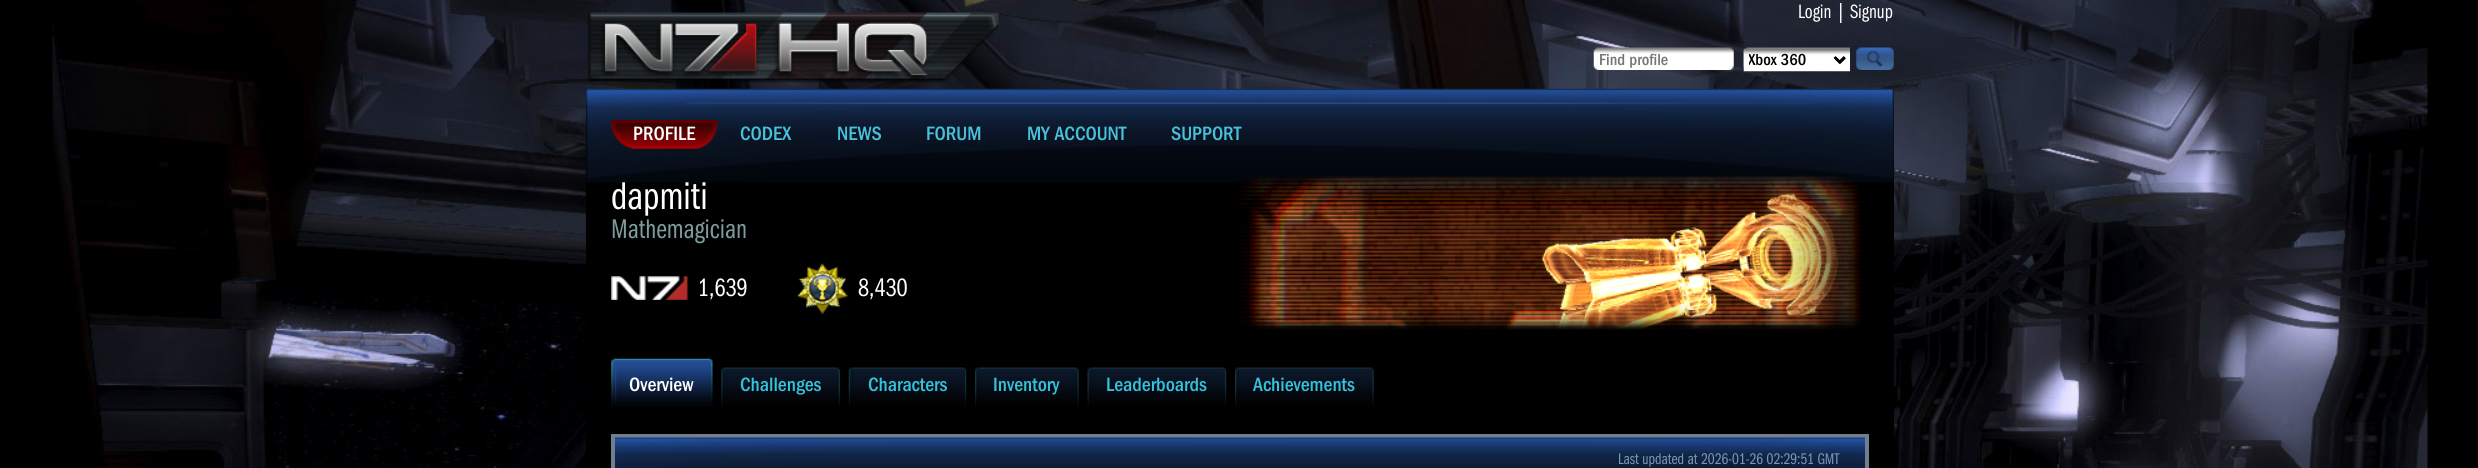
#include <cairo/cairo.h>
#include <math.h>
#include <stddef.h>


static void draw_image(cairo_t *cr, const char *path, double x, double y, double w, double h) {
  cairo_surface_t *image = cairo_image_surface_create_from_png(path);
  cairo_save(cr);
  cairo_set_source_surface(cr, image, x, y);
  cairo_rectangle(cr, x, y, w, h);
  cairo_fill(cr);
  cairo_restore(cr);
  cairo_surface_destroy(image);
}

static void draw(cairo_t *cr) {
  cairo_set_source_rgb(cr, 0, 0, 0);
  cairo_paint(cr);
  draw_image(cr, "images/1.png", 52, 0, 2376, 468);
  draw_image(cr, "images/2.png", 587, 12, 412, 71);
  draw_image(cr, "images/3.png", 1593, 47, 141, 23);
  draw_image(cr, "images/4.png", 1743, 47, 107, 22);
  draw_image(cr, "images/5.png", 1743, 48, 107, 24);
  cairo_new_path(cr);
  cairo_move_to(cr, 1834.5, 57);
  cairo_line_to(cr, 1839.5, 62);
  cairo_line_to(cr, 1844.5, 57);
  cairo_set_source_rgb(cr, 0, 0, 0);
  cairo_set_line_width(cr, 2.5);
  cairo_stroke(cr);
  draw_image(cr, "images/6.png", 1856, 47, 38, 23);
  cairo_rectangle(cr, 586, 89, 1308, 379);
  cairo_fill(cr);
  draw_image(cr, "images/7.png", 586, 88, 1308, 95);
  draw_image(cr, "images/8.png", 611, 120, 24, 29);
  draw_image(cr, "images/9.png", 633, 120, 85, 29);
  draw_image(cr, "images/10.png", 611, 276, 77, 24);
  draw_image(cr, "images/11.png", 797, 263, 51, 51);
  draw_image(cr, "images/12.png", 1238, 176, 624, 154);
  draw_image(cr, "images/13.png", 611, 358, 6, 49);
  draw_image(cr, "images/14.png", 615, 358, 98, 49);
  draw_image(cr, "images/15.png", 721, 367, 4, 40);
  draw_image(cr, "images/16.png", 725, 367, 115, 40);
  draw_image(cr, "images/17.png", 848, 367, 5, 40);
  draw_image(cr, "images/18.png", 852, 367, 115, 40);
  draw_image(cr, "images/19.png", 975, 367, 4, 40);
  draw_image(cr, "images/20.png", 978, 367, 101, 40);
  draw_image(cr, "images/21.png", 1087, 367, 5, 40);
  draw_image(cr, "images/22.png", 1091, 367, 136, 40);
  draw_image(cr, "images/23.png", 1235, 367, 4, 40);
  draw_image(cr, "images/24.png", 1238, 367, 136, 40);
  cairo_rectangle(cr, 613, 436, 1254, 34);
  cairo_set_source_rgb(cr, 112 / 255.0, 126 / 255.0, 141 / 255.0);
  cairo_set_line_width(cr, 4);
  cairo_stroke(cr);
  draw_image(cr, "images/25.png", 615, 437, 1250, 31);
  cairo_select_font_face(cr, "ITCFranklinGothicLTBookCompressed", CAIRO_FONT_SLANT_NORMAL, CAIRO_FONT_WEIGHT_NORMAL);
  cairo_set_font_size(cr, 20);
  cairo_set_source_rgb(cr, 1, 1, 1);
  cairo_move_to(cr, 1798, 18);
  cairo_show_text(cr, "Login | Signup");
  cairo_select_font_face(cr, "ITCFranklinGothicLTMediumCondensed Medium", CAIRO_FONT_SLANT_NORMAL, CAIRO_FONT_WEIGHT_NORMAL);
  cairo_set_font_size(cr, 16.5);
  cairo_set_source_rgb(cr, 117 / 255.0, 117 / 255.0, 117 / 255.0);
  cairo_move_to(cr, 1599, 65);
  cairo_show_text(cr, "Find profile");
  cairo_save(cr);
  cairo_rectangle(cr, 1749, 49, 81, 21);
  cairo_clip(cr);
  cairo_set_source_rgb(cr, 0, 0, 0);
  cairo_move_to(cr, 1748, 65);
  cairo_show_text(cr, "Xbox 360");
  cairo_restore(cr);
  cairo_set_font_size(cr, 20);
  cairo_set_source_rgb(cr, 1, 1, 1);
  cairo_move_to(cr, 633, 140);
  cairo_show_text(cr, "PROFILE");
  cairo_set_source_rgb(cr, 72 / 255.0, 194 / 255.0, 220 / 255.0);
  cairo_move_to(cr, 740, 140);
  cairo_show_text(cr, "CODEX");
  cairo_move_to(cr, 837, 140);
  cairo_show_text(cr, "NEWS");
  cairo_move_to(cr, 926, 140);
  cairo_show_text(cr, "FORUM");
  cairo_move_to(cr, 1027, 140);
  cairo_show_text(cr, "MY ACCOUNT");
  cairo_move_to(cr, 1171, 140);
  cairo_show_text(cr, "SUPPORT");
  cairo_select_font_face(cr, "ITCFranklinGothicLTBookCompressed", CAIRO_FONT_SLANT_NORMAL, CAIRO_FONT_WEIGHT_NORMAL);
  cairo_set_font_size(cr, 40);
  cairo_set_source_rgb(cr, 1, 1, 1);
  cairo_move_to(cr, 611, 209);
  cairo_show_text(cr, "dapmiti");
  cairo_set_font_size(cr, 28);
  cairo_set_source_rgb(cr, 126 / 255.0, 155 / 255.0, 155 / 255.0);
  cairo_move_to(cr, 611, 238);
  cairo_show_text(cr, "Mathemagician");
  cairo_set_font_size(cr, 26);
  cairo_set_source_rgb(cr, 1, 1, 1);
  cairo_move_to(cr, 698, 296);
  cairo_show_text(cr, "1,639");
  cairo_move_to(cr, 858, 296);
  cairo_show_text(cr, "8,430");
  cairo_select_font_face(cr, "ITCFranklinGothicLTMediumCondensed Medium", CAIRO_FONT_SLANT_NORMAL, CAIRO_FONT_WEIGHT_NORMAL);
  cairo_set_font_size(cr, 20);
  cairo_move_to(cr, 629, 391);
  cairo_show_text(cr, "Overview");
  cairo_set_source_rgb(cr, 53 / 255.0, 194 / 255.0, 220 / 255.0);
  cairo_move_to(cr, 740, 391);
  cairo_show_text(cr, "Challenges");
  cairo_move_to(cr, 868, 391);
  cairo_show_text(cr, "Characters");
  cairo_move_to(cr, 993, 391);
  cairo_show_text(cr, "Inventory");
  cairo_move_to(cr, 1106, 391);
  cairo_show_text(cr, "Leaderboards");
  cairo_move_to(cr, 1253, 391);
  cairo_show_text(cr, "Achievements");
  cairo_select_font_face(cr, "ITCFranklinGothicLTBookCompressed", CAIRO_FONT_SLANT_NORMAL, CAIRO_FONT_WEIGHT_NORMAL);
  cairo_set_font_size(cr, 16);
  cairo_set_source_rgb(cr, 121 / 255.0, 152 / 255.0, 185 / 255.0);
  cairo_move_to(cr, 1618, 464);
  cairo_show_text(cr, "Last updated at 2026-01-26 02:29:51 GMT");
}

int main(void) {
  cairo_surface_t *surface = cairo_image_surface_create(CAIRO_FORMAT_RGB24, 2478, 468);
  cairo_t *cr = cairo_create(surface);
  cairo_font_options_t *options = cairo_font_options_create();
  cairo_font_options_set_hint_metrics(options, CAIRO_HINT_METRICS_OFF);
  cairo_font_options_set_hint_style(options, CAIRO_HINT_STYLE_NONE);
  cairo_set_font_options(cr, options);
  cairo_set_miter_limit(cr, 4);
  draw(cr);
  cairo_surface_write_to_png(surface, "out.png");
  cairo_font_options_destroy(options);
  cairo_destroy(cr);
  cairo_surface_destroy(surface);
  return 0;
}
